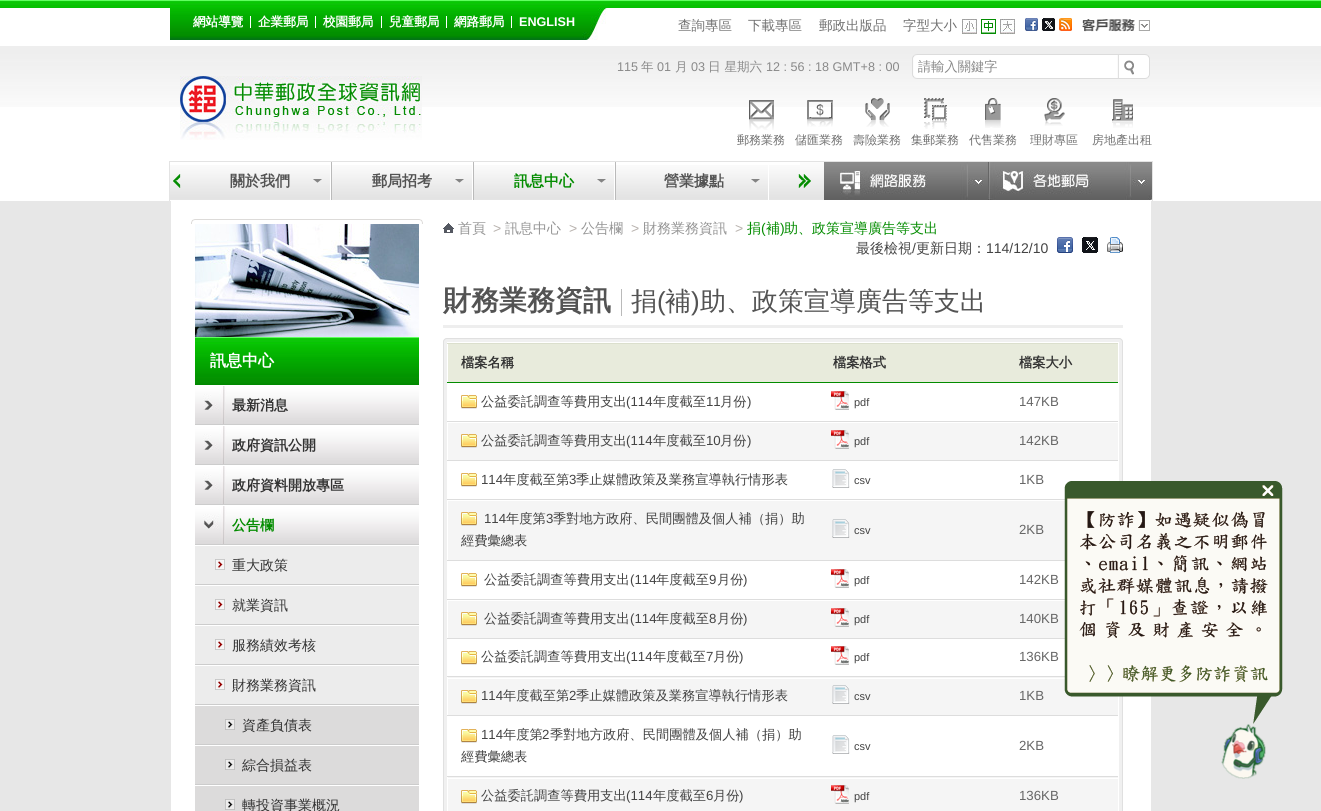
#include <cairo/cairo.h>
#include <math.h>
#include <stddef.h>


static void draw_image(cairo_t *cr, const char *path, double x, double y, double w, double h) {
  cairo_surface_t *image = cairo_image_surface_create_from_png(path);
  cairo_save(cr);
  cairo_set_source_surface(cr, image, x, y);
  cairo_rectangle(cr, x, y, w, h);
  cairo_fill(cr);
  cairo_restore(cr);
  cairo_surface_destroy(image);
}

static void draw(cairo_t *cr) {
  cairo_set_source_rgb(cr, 1, 1, 1);
  cairo_paint(cr);
  draw_image(cr, "images/1.png", 0, 0, 1321, 8);
  draw_image(cr, "images/2.png", 170, 8, 412, 32);
  cairo_set_source_rgb(cr, 1, 1, 1);
  cairo_rectangle(cr, 250, 16, 1, 12);
  cairo_fill(cr);
  cairo_rectangle(cr, 315, 16, 1, 12);
  cairo_fill(cr);
  cairo_rectangle(cr, 381, 16, 1, 12);
  cairo_fill(cr);
  cairo_rectangle(cr, 446, 16, 1, 12);
  cairo_fill(cr);
  cairo_rectangle(cr, 511, 16, 1, 12);
  cairo_fill(cr);
  draw_image(cr, "images/3.png", 582, 8, 26, 32);
  draw_image(cr, "images/4.png", 962, 19, 15, 15);
  draw_image(cr, "images/5.png", 981, 19, 15, 15);
  draw_image(cr, "images/6.png", 1000, 19, 15, 15);
  draw_image(cr, "images/7.png", 1025, 18, 13, 13);
  draw_image(cr, "images/8.png", 1042, 18, 13, 13);
  draw_image(cr, "images/9.png", 1059, 18, 13, 13);
  draw_image(cr, "images/10.png", 1082, 19, 68, 13);
  draw_image(cr, "images/11.png", 0, 46, 1321, 61);
  draw_image(cr, "images/12.png", 912, 54, 238, 25);
  draw_image(cr, "images/13.png", 1124, 60, 10, 15);
  draw_image(cr, "images/14.png", 180, 76, 242, 64);
  draw_image(cr, "images/15.png", 749, 100, 25, 30);
  draw_image(cr, "images/16.png", 807, 100, 26, 27);
  draw_image(cr, "images/17.png", 865, 98, 25, 29);
  draw_image(cr, "images/18.png", 924, 98, 23, 31);
  draw_image(cr, "images/19.png", 985, 98, 16, 30);
  draw_image(cr, "images/20.png", 1044, 98, 21, 28);
  draw_image(cr, "images/21.png", 1112, 99, 21, 29);
  draw_image(cr, "images/22.png", 170, 165, 630, 35);
  cairo_set_source_rgb(cr, 227 / 255.0, 227 / 255.0, 227 / 255.0);
  cairo_rectangle(cr, 169, 161, 984, 1);
  cairo_fill(cr);
  cairo_rectangle(cr, 1152, 161, 1, 40);
  cairo_fill(cr);
  cairo_rectangle(cr, 169, 161, 1, 40);
  cairo_fill(cr);
  draw_image(cr, "images/23.png", 173, 174, 8, 14);
  cairo_set_source_rgb(cr, 1, 1, 1);
  cairo_rectangle(cr, 330, 162, 1, 38);
  cairo_fill(cr);
  draw_image(cr, "images/24.png", 313, 179, 9, 4);
  cairo_rectangle(cr, 472, 162, 1, 38);
  cairo_fill(cr);
  cairo_set_source_rgb(cr, 186 / 255.0, 186 / 255.0, 186 / 255.0);
  cairo_rectangle(cr, 331, 162, 1, 38);
  cairo_fill(cr);
  draw_image(cr, "images/24.png", 455, 179, 9, 4);
  cairo_set_source_rgb(cr, 1, 1, 1);
  cairo_rectangle(cr, 614, 162, 1, 38);
  cairo_fill(cr);
  cairo_set_source_rgb(cr, 186 / 255.0, 186 / 255.0, 186 / 255.0);
  cairo_rectangle(cr, 473, 162, 1, 38);
  cairo_fill(cr);
  draw_image(cr, "images/24.png", 597, 179, 9, 4);
  cairo_set_source_rgb(cr, 1, 1, 1);
  cairo_rectangle(cr, 768, 162, 1, 38);
  cairo_fill(cr);
  cairo_set_source_rgb(cr, 186 / 255.0, 186 / 255.0, 186 / 255.0);
  cairo_rectangle(cr, 615, 162, 1, 38);
  cairo_fill(cr);
  draw_image(cr, "images/24.png", 751, 179, 9, 4);
  draw_image(cr, "images/25.png", 800, 162, 24, 38);
  draw_image(cr, "images/26.png", 803, 174, 8, 14);
  draw_image(cr, "images/27.png", 798, 174, 8, 14);
  draw_image(cr, "images/28.png", 824, 162, 164, 38);
  draw_image(cr, "images/29.png", 988, 162, 164, 38);
  cairo_set_source_rgb(cr, 231 / 255.0, 231 / 255.0, 231 / 255.0);
  cairo_rectangle(cr, 0, 201, 1321, 610);
  cairo_fill(cr);
  cairo_set_source_rgb(cr, 1, 1, 1);
  cairo_rectangle(cr, 171, 201, 980, 610);
  cairo_fill(cr);
  draw_image(cr, "images/30.png", 191, 219, 232, 5);
  draw_image(cr, "images/31.png", 195, 224, 224, 113);
  draw_image(cr, "images/32.png", 195, 337, 224, 48);
  draw_image(cr, "images/33.png", 195, 386, 224, 38);
  cairo_set_source_rgb(cr, 204 / 255.0, 204 / 255.0, 204 / 255.0);
  cairo_rectangle(cr, 195, 424, 224, 1);
  cairo_fill(cr);
  draw_image(cr, "images/33.png", 195, 426, 224, 38);
  cairo_rectangle(cr, 195, 464, 224, 1);
  cairo_fill(cr);
  draw_image(cr, "images/33.png", 195, 466, 224, 38);
  cairo_rectangle(cr, 195, 504, 224, 1);
  cairo_fill(cr);
  draw_image(cr, "images/34.png", 195, 506, 224, 38);
  cairo_rectangle(cr, 195, 544, 224, 1);
  cairo_fill(cr);
  cairo_set_source_rgb(cr, 236 / 255.0, 236 / 255.0, 236 / 255.0);
  cairo_rectangle(cr, 195, 546, 224, 38);
  cairo_fill(cr);
  draw_image(cr, "images/35.png", 215, 559, 10, 11);
  cairo_set_source_rgb(cr, 204 / 255.0, 204 / 255.0, 204 / 255.0);
  cairo_rectangle(cr, 195, 584, 224, 1);
  cairo_fill(cr);
  cairo_set_source_rgb(cr, 236 / 255.0, 236 / 255.0, 236 / 255.0);
  cairo_rectangle(cr, 195, 586, 224, 38);
  cairo_fill(cr);
  draw_image(cr, "images/35.png", 215, 599, 10, 11);
  cairo_set_source_rgb(cr, 204 / 255.0, 204 / 255.0, 204 / 255.0);
  cairo_rectangle(cr, 195, 624, 224, 1);
  cairo_fill(cr);
  cairo_set_source_rgb(cr, 236 / 255.0, 236 / 255.0, 236 / 255.0);
  cairo_rectangle(cr, 195, 626, 224, 38);
  cairo_fill(cr);
  draw_image(cr, "images/35.png", 215, 639, 10, 11);
  cairo_set_source_rgb(cr, 204 / 255.0, 204 / 255.0, 204 / 255.0);
  cairo_rectangle(cr, 195, 664, 224, 1);
  cairo_fill(cr);
  cairo_set_source_rgb(cr, 236 / 255.0, 236 / 255.0, 236 / 255.0);
  cairo_rectangle(cr, 195, 666, 224, 38);
  cairo_fill(cr);
  draw_image(cr, "images/35.png", 215, 679, 10, 11);
  cairo_set_source_rgb(cr, 204 / 255.0, 204 / 255.0, 204 / 255.0);
  cairo_rectangle(cr, 195, 704, 224, 1);
  cairo_fill(cr);
  cairo_set_source_rgb(cr, 220 / 255.0, 219 / 255.0, 219 / 255.0);
  cairo_rectangle(cr, 195, 706, 224, 38);
  cairo_fill(cr);
  draw_image(cr, "images/36.png", 225, 719, 10, 11);
  cairo_set_source_rgb(cr, 204 / 255.0, 204 / 255.0, 204 / 255.0);
  cairo_rectangle(cr, 195, 744, 224, 1);
  cairo_fill(cr);
  cairo_set_source_rgb(cr, 220 / 255.0, 219 / 255.0, 219 / 255.0);
  cairo_rectangle(cr, 195, 746, 224, 38);
  cairo_fill(cr);
  draw_image(cr, "images/36.png", 225, 759, 10, 11);
  cairo_set_source_rgb(cr, 204 / 255.0, 204 / 255.0, 204 / 255.0);
  cairo_rectangle(cr, 195, 784, 224, 1);
  cairo_fill(cr);
  cairo_set_source_rgb(cr, 220 / 255.0, 219 / 255.0, 219 / 255.0);
  cairo_rectangle(cr, 195, 786, 224, 25);
  cairo_fill(cr);
  draw_image(cr, "images/36.png", 225, 799, 10, 11);
  draw_image(cr, "images/37.png", 443, 223, 11, 10);
  draw_image(cr, "images/38.png", 1057, 237, 16, 16);
  draw_image(cr, "images/39.png", 1082, 237, 16, 16);
  draw_image(cr, "images/40.png", 1107, 237, 16, 16);
  cairo_set_source_rgb(cr, 238 / 255.0, 238 / 255.0, 238 / 255.0);
  cairo_rectangle(cr, 443, 325, 680, 3);
  cairo_fill(cr);
  cairo_set_source_rgb(cr, 186 / 255.0, 186 / 255.0, 186 / 255.0);
  cairo_rectangle(cr, 621, 289, 1, 27);
  cairo_fill(cr);
  cairo_set_source_rgb(cr, 240 / 255.0, 240 / 255.0, 240 / 255.0);
  cairo_new_path(cr);
  cairo_move_to(cr, 447, 338);
  cairo_line_to(cr, 1119, 338);
  cairo_curve_to(cr, 1121, 338, 1123, 340, 1123, 342);
  cairo_line_to(cr, 1123, 811);
  cairo_line_to(cr, 443, 811);
  cairo_line_to(cr, 443, 342);
  cairo_curve_to(cr, 443, 340, 445, 338, 447, 338);
  cairo_close_path(cr);
  cairo_fill(cr);
  cairo_new_path(cr);
  cairo_move_to(cr, 444.5, 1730.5);
  cairo_curve_to(cr, 444, 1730, 443.5, 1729, 443.5, 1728);
  cairo_line_to(cr, 443.5, 342);
  cairo_curve_to(cr, 443.5, 341, 444, 340, 444.5, 339.5);
  cairo_curve_to(cr, 445, 339, 446, 338.5, 447, 338.5);
  cairo_line_to(cr, 1119, 338.5);
  cairo_curve_to(cr, 1120, 338.5, 1121, 339, 1121.5, 339.5);
  cairo_curve_to(cr, 1122, 340, 1122.5, 341, 1122.5, 342);
  cairo_line_to(cr, 1122.5, 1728);
  cairo_curve_to(cr, 1122.5, 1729, 1122, 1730, 1121.5, 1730.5);
  cairo_set_source_rgb(cr, 224 / 255.0, 224 / 255.0, 224 / 255.0);
  cairo_set_line_width(cr, 1);
  cairo_stroke(cr);
  cairo_set_source_rgb(cr, 1, 1, 1);
  cairo_rectangle(cr, 447, 342, 672, 469);
  cairo_fill(cr);
  cairo_set_source_rgb(cr, 232 / 255.0, 235 / 255.0, 220 / 255.0);
  cairo_rectangle(cr, 448, 344, 670, 38);
  cairo_fill(cr);
  cairo_set_source_rgb(cr, 219 / 255.0, 223 / 255.0, 205 / 255.0);
  cairo_rectangle(cr, 447, 343, 671, 1);
  cairo_fill(cr);
  cairo_set_source_rgb(cr, 3 / 255.0, 140 / 255.0, 0);
  cairo_rectangle(cr, 447, 382, 671, 1);
  cairo_fill(cr);
  draw_image(cr, "images/41.png", 461, 395, 16, 14);
  draw_image(cr, "images/42.png", 831, 391, 18, 19);
  cairo_set_source_rgb(cr, 245 / 255.0, 245 / 255.0, 245 / 255.0);
  cairo_rectangle(cr, 448, 423, 670, 37);
  cairo_fill(cr);
  draw_image(cr, "images/43.png", 461, 434, 16, 14);
  draw_image(cr, "images/44.png", 831, 430, 18, 19);
  cairo_set_source_rgb(cr, 221 / 255.0, 221 / 255.0, 221 / 255.0);
  cairo_rectangle(cr, 447, 421, 671, 1);
  cairo_fill(cr);
  draw_image(cr, "images/41.png", 461, 473, 16, 14);
  draw_image(cr, "images/45.png", 832, 469, 18, 19);
  cairo_rectangle(cr, 447, 460, 671, 1);
  cairo_fill(cr);
  cairo_set_source_rgb(cr, 245 / 255.0, 245 / 255.0, 245 / 255.0);
  cairo_rectangle(cr, 448, 501, 617, 59);
  cairo_fill(cr);
  draw_image(cr, "images/43.png", 461, 512, 16, 14);
  draw_image(cr, "images/46.png", 832, 519, 18, 19);
  cairo_set_source_rgb(cr, 221 / 255.0, 221 / 255.0, 221 / 255.0);
  cairo_rectangle(cr, 447, 499, 618, 1);
  cairo_fill(cr);
  draw_image(cr, "images/41.png", 461, 573, 16, 14);
  draw_image(cr, "images/42.png", 831, 569, 18, 19);
  cairo_rectangle(cr, 447, 560, 618, 1);
  cairo_fill(cr);
  cairo_set_source_rgb(cr, 245 / 255.0, 245 / 255.0, 245 / 255.0);
  cairo_rectangle(cr, 448, 601, 617, 37);
  cairo_fill(cr);
  draw_image(cr, "images/43.png", 461, 612, 16, 14);
  draw_image(cr, "images/44.png", 831, 608, 18, 19);
  cairo_set_source_rgb(cr, 221 / 255.0, 221 / 255.0, 221 / 255.0);
  cairo_rectangle(cr, 447, 599, 618, 1);
  cairo_fill(cr);
  draw_image(cr, "images/41.png", 461, 651, 16, 14);
  draw_image(cr, "images/42.png", 831, 646, 18, 19);
  cairo_rectangle(cr, 447, 638, 618, 1);
  cairo_fill(cr);
  cairo_set_source_rgb(cr, 245 / 255.0, 245 / 255.0, 245 / 255.0);
  cairo_rectangle(cr, 448, 677, 670, 38);
  cairo_fill(cr);
  cairo_set_source_rgb(cr, 1, 1, 1);
  cairo_rectangle(cr, 448, 678, 617, 1);
  cairo_fill(cr);
  draw_image(cr, "images/43.png", 461, 690, 16, 14);
  draw_image(cr, "images/46.png", 832, 685, 18, 19);
  cairo_set_source_rgb(cr, 221 / 255.0, 221 / 255.0, 221 / 255.0);
  cairo_rectangle(cr, 447, 676, 618, 1);
  cairo_fill(cr);
  draw_image(cr, "images/41.png", 461, 729, 16, 14);
  draw_image(cr, "images/45.png", 832, 735, 18, 19);
  cairo_rectangle(cr, 447, 715, 671, 1);
  cairo_fill(cr);
  cairo_set_source_rgb(cr, 245 / 255.0, 245 / 255.0, 245 / 255.0);
  cairo_rectangle(cr, 448, 777, 670, 34);
  cairo_fill(cr);
  cairo_set_source_rgb(cr, 1, 1, 1);
  cairo_rectangle(cr, 448, 778, 670, 1);
  cairo_fill(cr);
  draw_image(cr, "images/43.png", 461, 790, 16, 14);
  draw_image(cr, "images/44.png", 831, 785, 18, 19);
  cairo_set_source_rgb(cr, 221 / 255.0, 221 / 255.0, 221 / 255.0);
  cairo_rectangle(cr, 447, 776, 671, 1);
  cairo_fill(cr);
  draw_image(cr, "images/47.png", 1064, 481, 219, 18);
  draw_image(cr, "images/48.png", 1064, 499, 219, 156);
  draw_image(cr, "images/49.png", 1064, 655, 219, 41);
  draw_image(cr, "images/50.png", 1069, 696, 208, 28);
  draw_image(cr, "images/51.png", 1221, 724, 45, 55);
  cairo_save(cr);
  cairo_rectangle(cr, 193, 13, 50, 18);
  cairo_clip(cr);
  cairo_select_font_face(cr, "WenQuanYi Zen Hei", CAIRO_FONT_SLANT_NORMAL, CAIRO_FONT_WEIGHT_BOLD);
  cairo_set_font_size(cr, 12.6);
  cairo_set_source_rgb(cr, 1, 1, 1);
  cairo_move_to(cr, 193, 26);
  cairo_show_text(cr, "網站導覽");
  cairo_restore(cr);
  cairo_select_font_face(cr, "WenQuanYi Zen Hei", CAIRO_FONT_SLANT_NORMAL, CAIRO_FONT_WEIGHT_BOLD);
  cairo_set_font_size(cr, 12.6);
  cairo_set_source_rgb(cr, 1, 1, 1);
  cairo_move_to(cr, 258, 26);
  cairo_show_text(cr, "企業郵局");
  cairo_move_to(cr, 323, 26);
  cairo_show_text(cr, "校園郵局");
  cairo_move_to(cr, 389, 26);
  cairo_show_text(cr, "兒童郵局");
  cairo_move_to(cr, 454, 26);
  cairo_show_text(cr, "網路郵局");
  cairo_select_font_face(cr, "Liberation Sans", CAIRO_FONT_SLANT_NORMAL, CAIRO_FONT_WEIGHT_BOLD);
  cairo_move_to(cr, 519, 26);
  cairo_show_text(cr, "ENGLISH");
  cairo_select_font_face(cr, "WenQuanYi Zen Hei Medium", CAIRO_FONT_SLANT_NORMAL, CAIRO_FONT_WEIGHT_NORMAL);
  cairo_set_font_size(cr, 13.5);
  cairo_set_source_rgb(cr, 112 / 255.0, 112 / 255.0, 112 / 255.0);
  cairo_move_to(cr, 678, 30);
  cairo_show_text(cr, "查詢專區");
  cairo_move_to(cr, 748, 30);
  cairo_show_text(cr, "下載專區");
  cairo_move_to(cr, 819, 30);
  cairo_show_text(cr, "郵政出版品");
  cairo_move_to(cr, 903, 30);
  cairo_show_text(cr, "字型大小");
  cairo_select_font_face(cr, "Liberation Sans", CAIRO_FONT_SLANT_NORMAL, CAIRO_FONT_WEIGHT_NORMAL);
  cairo_set_font_size(cr, 12.6);
  cairo_set_source_rgb(cr, 137 / 255.0, 137 / 255.0, 137 / 255.0);
  cairo_move_to(cr, 617, 71);
  cairo_show_text(cr, "115");
  cairo_select_font_face(cr, "WenQuanYi Zen Hei Medium", CAIRO_FONT_SLANT_NORMAL, CAIRO_FONT_WEIGHT_NORMAL);
  cairo_move_to(cr, 641, 71);
  cairo_show_text(cr, "年");
  cairo_select_font_face(cr, "Liberation Sans", CAIRO_FONT_SLANT_NORMAL, CAIRO_FONT_WEIGHT_NORMAL);
  cairo_move_to(cr, 657, 71);
  cairo_show_text(cr, "01");
  cairo_select_font_face(cr, "WenQuanYi Zen Hei Medium", CAIRO_FONT_SLANT_NORMAL, CAIRO_FONT_WEIGHT_NORMAL);
  cairo_move_to(cr, 675, 71);
  cairo_show_text(cr, "月");
  cairo_select_font_face(cr, "Liberation Sans", CAIRO_FONT_SLANT_NORMAL, CAIRO_FONT_WEIGHT_NORMAL);
  cairo_move_to(cr, 691, 71);
  cairo_show_text(cr, "03");
  cairo_select_font_face(cr, "WenQuanYi Zen Hei Medium", CAIRO_FONT_SLANT_NORMAL, CAIRO_FONT_WEIGHT_NORMAL);
  cairo_move_to(cr, 708, 71);
  cairo_show_text(cr, "日 星期六");
  cairo_select_font_face(cr, "Liberation Sans", CAIRO_FONT_SLANT_NORMAL, CAIRO_FONT_WEIGHT_NORMAL);
  cairo_move_to(cr, 766, 71);
  cairo_show_text(cr, "12 : 56 : 18 GMT+8 : 00");
  cairo_save(cr);
  cairo_rectangle(cr, 918, 58, 185, 18);
  cairo_clip(cr);
  cairo_select_font_face(cr, "WenQuanYi Zen Hei Medium", CAIRO_FONT_SLANT_NORMAL, CAIRO_FONT_WEIGHT_NORMAL);
  cairo_set_font_size(cr, 13.25);
  cairo_move_to(cr, 918, 71);
  cairo_show_text(cr, "請輸入關鍵字");
  cairo_restore(cr);
  cairo_select_font_face(cr, "WenQuanYi Zen Hei Medium", CAIRO_FONT_SLANT_NORMAL, CAIRO_FONT_WEIGHT_NORMAL);
  cairo_set_font_size(cr, 12);
  cairo_set_source_rgb(cr, 112 / 255.0, 112 / 255.0, 112 / 255.0);
  cairo_move_to(cr, 737, 144);
  cairo_show_text(cr, "郵務業務");
  cairo_move_to(cr, 795, 144);
  cairo_show_text(cr, "儲匯業務");
  cairo_move_to(cr, 853, 144);
  cairo_show_text(cr, "壽險業務");
  cairo_move_to(cr, 911, 144);
  cairo_show_text(cr, "集郵業務");
  cairo_move_to(cr, 969, 144);
  cairo_show_text(cr, "代售業務");
  cairo_move_to(cr, 1030, 144);
  cairo_show_text(cr, "理財專區");
  cairo_move_to(cr, 1092, 144);
  cairo_show_text(cr, "房地產出租");
  cairo_select_font_face(cr, "WenQuanYi Zen Hei", CAIRO_FONT_SLANT_NORMAL, CAIRO_FONT_WEIGHT_BOLD);
  cairo_set_font_size(cr, 15);
  cairo_set_source_rgb(cr, 83 / 255.0, 83 / 255.0, 83 / 255.0);
  cairo_move_to(cr, 230, 186);
  cairo_show_text(cr, "關於我們");
  cairo_move_to(cr, 372, 186);
  cairo_show_text(cr, "郵局招考");
  cairo_set_source_rgb(cr, 3 / 255.0, 140 / 255.0, 0);
  cairo_move_to(cr, 514, 186);
  cairo_show_text(cr, "訊息中心");
  cairo_set_source_rgb(cr, 83 / 255.0, 83 / 255.0, 83 / 255.0);
  cairo_move_to(cr, 664, 186);
  cairo_show_text(cr, "營業據點");
  cairo_set_font_size(cr, 16);
  cairo_set_source_rgb(cr, 1, 1, 1);
  cairo_move_to(cr, 210, 366);
  cairo_show_text(cr, "訊息中心");
  cairo_set_font_size(cr, 14);
  cairo_set_source_rgb(cr, 51 / 255.0, 51 / 255.0, 51 / 255.0);
  cairo_move_to(cr, 232, 410);
  cairo_show_text(cr, "最新消息");
  cairo_move_to(cr, 232, 450);
  cairo_show_text(cr, "政府資訊公開");
  cairo_move_to(cr, 232, 490);
  cairo_show_text(cr, "政府資料開放專區");
  cairo_set_source_rgb(cr, 3 / 255.0, 140 / 255.0, 0);
  cairo_move_to(cr, 232, 530);
  cairo_show_text(cr, "公告欄");
  cairo_select_font_face(cr, "WenQuanYi Zen Hei Medium", CAIRO_FONT_SLANT_NORMAL, CAIRO_FONT_WEIGHT_NORMAL);
  cairo_set_source_rgb(cr, 51 / 255.0, 51 / 255.0, 51 / 255.0);
  cairo_move_to(cr, 232, 570);
  cairo_show_text(cr, "重大政策");
  cairo_move_to(cr, 232, 610);
  cairo_show_text(cr, "就業資訊");
  cairo_move_to(cr, 232, 650);
  cairo_show_text(cr, "服務績效考核");
  cairo_move_to(cr, 232, 690);
  cairo_show_text(cr, "財務業務資訊");
  cairo_move_to(cr, 242, 730);
  cairo_show_text(cr, "資產負債表");
  cairo_move_to(cr, 242, 770);
  cairo_show_text(cr, "綜合損益表");
  cairo_move_to(cr, 242, 810);
  cairo_show_text(cr, "轉投資事業概況");
  cairo_set_source_rgb(cr, 149 / 255.0, 149 / 255.0, 149 / 255.0);
  cairo_move_to(cr, 458, 233);
  cairo_show_text(cr, "首頁");
  cairo_select_font_face(cr, "Liberation Sans", CAIRO_FONT_SLANT_NORMAL, CAIRO_FONT_WEIGHT_NORMAL);
  cairo_set_source_rgb(cr, 184 / 255.0, 178 / 255.0, 174 / 255.0);
  cairo_move_to(cr, 493, 233);
  cairo_show_text(cr, ">");
  cairo_select_font_face(cr, "WenQuanYi Zen Hei Medium", CAIRO_FONT_SLANT_NORMAL, CAIRO_FONT_WEIGHT_NORMAL);
  cairo_set_source_rgb(cr, 149 / 255.0, 149 / 255.0, 149 / 255.0);
  cairo_move_to(cr, 505, 233);
  cairo_show_text(cr, "訊息中心");
  cairo_select_font_face(cr, "Liberation Sans", CAIRO_FONT_SLANT_NORMAL, CAIRO_FONT_WEIGHT_NORMAL);
  cairo_set_source_rgb(cr, 184 / 255.0, 178 / 255.0, 174 / 255.0);
  cairo_move_to(cr, 569, 233);
  cairo_show_text(cr, ">");
  cairo_select_font_face(cr, "WenQuanYi Zen Hei Medium", CAIRO_FONT_SLANT_NORMAL, CAIRO_FONT_WEIGHT_NORMAL);
  cairo_set_source_rgb(cr, 149 / 255.0, 149 / 255.0, 149 / 255.0);
  cairo_move_to(cr, 581, 233);
  cairo_show_text(cr, "公告欄");
  cairo_select_font_face(cr, "Liberation Sans", CAIRO_FONT_SLANT_NORMAL, CAIRO_FONT_WEIGHT_NORMAL);
  cairo_set_source_rgb(cr, 184 / 255.0, 178 / 255.0, 174 / 255.0);
  cairo_move_to(cr, 631, 233);
  cairo_show_text(cr, ">");
  cairo_select_font_face(cr, "WenQuanYi Zen Hei Medium", CAIRO_FONT_SLANT_NORMAL, CAIRO_FONT_WEIGHT_NORMAL);
  cairo_set_source_rgb(cr, 149 / 255.0, 149 / 255.0, 149 / 255.0);
  cairo_move_to(cr, 643, 233);
  cairo_show_text(cr, "財務業務資訊");
  cairo_select_font_face(cr, "Liberation Sans", CAIRO_FONT_SLANT_NORMAL, CAIRO_FONT_WEIGHT_NORMAL);
  cairo_set_source_rgb(cr, 184 / 255.0, 178 / 255.0, 174 / 255.0);
  cairo_move_to(cr, 735, 233);
  cairo_show_text(cr, ">");
  cairo_select_font_face(cr, "WenQuanYi Zen Hei Medium", CAIRO_FONT_SLANT_NORMAL, CAIRO_FONT_WEIGHT_NORMAL);
  cairo_set_source_rgb(cr, 3 / 255.0, 140 / 255.0, 0);
  cairo_move_to(cr, 747, 233);
  cairo_show_text(cr, "捐");
  cairo_select_font_face(cr, "Liberation Sans", CAIRO_FONT_SLANT_NORMAL, CAIRO_FONT_WEIGHT_NORMAL);
  cairo_move_to(cr, 761, 233);
  cairo_show_text(cr, "(");
  cairo_select_font_face(cr, "WenQuanYi Zen Hei Medium", CAIRO_FONT_SLANT_NORMAL, CAIRO_FONT_WEIGHT_NORMAL);
  cairo_move_to(cr, 766, 233);
  cairo_show_text(cr, "補");
  cairo_select_font_face(cr, "Liberation Sans", CAIRO_FONT_SLANT_NORMAL, CAIRO_FONT_WEIGHT_NORMAL);
  cairo_move_to(cr, 780, 233);
  cairo_show_text(cr, ")");
  cairo_select_font_face(cr, "WenQuanYi Zen Hei Medium", CAIRO_FONT_SLANT_NORMAL, CAIRO_FONT_WEIGHT_NORMAL);
  cairo_move_to(cr, 784, 233);
  cairo_show_text(cr, "助、政策宣導廣告等支出");
  cairo_set_source_rgb(cr, 67 / 255.0, 67 / 255.0, 67 / 255.0);
  cairo_move_to(cr, 856, 253);
  cairo_show_text(cr, "最後檢視");
  cairo_select_font_face(cr, "Liberation Sans", CAIRO_FONT_SLANT_NORMAL, CAIRO_FONT_WEIGHT_NORMAL);
  cairo_move_to(cr, 912, 253);
  cairo_show_text(cr, "/");
  cairo_select_font_face(cr, "WenQuanYi Zen Hei Medium", CAIRO_FONT_SLANT_NORMAL, CAIRO_FONT_WEIGHT_NORMAL);
  cairo_move_to(cr, 916, 253);
  cairo_show_text(cr, "更新日期：");
  cairo_select_font_face(cr, "Liberation Sans", CAIRO_FONT_SLANT_NORMAL, CAIRO_FONT_WEIGHT_NORMAL);
  cairo_move_to(cr, 986, 253);
  cairo_show_text(cr, "114/12/10");
  cairo_select_font_face(cr, "WenQuanYi Zen Hei", CAIRO_FONT_SLANT_NORMAL, CAIRO_FONT_WEIGHT_BOLD);
  cairo_set_font_size(cr, 28);
  cairo_set_source_rgb(cr, 83 / 255.0, 83 / 255.0, 83 / 255.0);
  cairo_move_to(cr, 443, 310);
  cairo_show_text(cr, "財務業務資訊");
  cairo_select_font_face(cr, "WenQuanYi Zen Hei Medium", CAIRO_FONT_SLANT_NORMAL, CAIRO_FONT_WEIGHT_NORMAL);
  cairo_set_font_size(cr, 26);
  cairo_move_to(cr, 631, 310);
  cairo_show_text(cr, "捐");
  cairo_select_font_face(cr, "Liberation Sans", CAIRO_FONT_SLANT_NORMAL, CAIRO_FONT_WEIGHT_NORMAL);
  cairo_move_to(cr, 657, 310);
  cairo_show_text(cr, "(");
  cairo_select_font_face(cr, "WenQuanYi Zen Hei Medium", CAIRO_FONT_SLANT_NORMAL, CAIRO_FONT_WEIGHT_NORMAL);
  cairo_move_to(cr, 665, 310);
  cairo_show_text(cr, "補");
  cairo_select_font_face(cr, "Liberation Sans", CAIRO_FONT_SLANT_NORMAL, CAIRO_FONT_WEIGHT_NORMAL);
  cairo_move_to(cr, 691, 310);
  cairo_show_text(cr, ")");
  cairo_select_font_face(cr, "WenQuanYi Zen Hei Medium", CAIRO_FONT_SLANT_NORMAL, CAIRO_FONT_WEIGHT_NORMAL);
  cairo_move_to(cr, 700, 310);
  cairo_show_text(cr, "助、政策宣導廣告等支出");
  cairo_select_font_face(cr, "WenQuanYi Zen Hei", CAIRO_FONT_SLANT_NORMAL, CAIRO_FONT_WEIGHT_BOLD);
  cairo_set_font_size(cr, 13.25);
  cairo_set_source_rgb(cr, 51 / 255.0, 51 / 255.0, 51 / 255.0);
  cairo_move_to(cr, 461, 367);
  cairo_show_text(cr, "檔案名稱");
  cairo_move_to(cr, 833, 367);
  cairo_show_text(cr, "檔案格式");
  cairo_move_to(cr, 1019, 367);
  cairo_show_text(cr, "檔案大小");
  cairo_select_font_face(cr, "WenQuanYi Zen Hei Medium", CAIRO_FONT_SLANT_NORMAL, CAIRO_FONT_WEIGHT_NORMAL);
  cairo_set_source_rgb(cr, 67 / 255.0, 67 / 255.0, 67 / 255.0);
  cairo_move_to(cr, 481, 406);
  cairo_show_text(cr, "公益委託調查等費用支出");
  cairo_select_font_face(cr, "Liberation Sans", CAIRO_FONT_SLANT_NORMAL, CAIRO_FONT_WEIGHT_NORMAL);
  cairo_move_to(cr, 626, 406);
  cairo_show_text(cr, "(114");
  cairo_select_font_face(cr, "WenQuanYi Zen Hei Medium", CAIRO_FONT_SLANT_NORMAL, CAIRO_FONT_WEIGHT_NORMAL);
  cairo_move_to(cr, 653, 406);
  cairo_show_text(cr, "年度截至");
  cairo_select_font_face(cr, "Liberation Sans", CAIRO_FONT_SLANT_NORMAL, CAIRO_FONT_WEIGHT_NORMAL);
  cairo_move_to(cr, 706, 406);
  cairo_show_text(cr, "11");
  cairo_select_font_face(cr, "WenQuanYi Zen Hei Medium", CAIRO_FONT_SLANT_NORMAL, CAIRO_FONT_WEIGHT_NORMAL);
  cairo_move_to(cr, 720, 406);
  cairo_show_text(cr, "月份");
  cairo_select_font_face(cr, "Liberation Sans", CAIRO_FONT_SLANT_NORMAL, CAIRO_FONT_WEIGHT_NORMAL);
  cairo_move_to(cr, 747, 406);
  cairo_show_text(cr, ")");
  cairo_set_font_size(cr, 11);
  cairo_move_to(cr, 854, 406);
  cairo_show_text(cr, "pdf");
  cairo_set_font_size(cr, 13.25);
  cairo_set_source_rgb(cr, 102 / 255.0, 102 / 255.0, 102 / 255.0);
  cairo_move_to(cr, 1019, 406);
  cairo_show_text(cr, "147KB");
  cairo_select_font_face(cr, "WenQuanYi Zen Hei Medium", CAIRO_FONT_SLANT_NORMAL, CAIRO_FONT_WEIGHT_NORMAL);
  cairo_set_source_rgb(cr, 67 / 255.0, 67 / 255.0, 67 / 255.0);
  cairo_move_to(cr, 481, 445);
  cairo_show_text(cr, "公益委託調查等費用支出");
  cairo_select_font_face(cr, "Liberation Sans", CAIRO_FONT_SLANT_NORMAL, CAIRO_FONT_WEIGHT_NORMAL);
  cairo_move_to(cr, 626, 445);
  cairo_show_text(cr, "(114");
  cairo_select_font_face(cr, "WenQuanYi Zen Hei Medium", CAIRO_FONT_SLANT_NORMAL, CAIRO_FONT_WEIGHT_NORMAL);
  cairo_move_to(cr, 653, 445);
  cairo_show_text(cr, "年度截至");
  cairo_select_font_face(cr, "Liberation Sans", CAIRO_FONT_SLANT_NORMAL, CAIRO_FONT_WEIGHT_NORMAL);
  cairo_move_to(cr, 706, 445);
  cairo_show_text(cr, "10");
  cairo_select_font_face(cr, "WenQuanYi Zen Hei Medium", CAIRO_FONT_SLANT_NORMAL, CAIRO_FONT_WEIGHT_NORMAL);
  cairo_move_to(cr, 720, 445);
  cairo_show_text(cr, "月份");
  cairo_select_font_face(cr, "Liberation Sans", CAIRO_FONT_SLANT_NORMAL, CAIRO_FONT_WEIGHT_NORMAL);
  cairo_move_to(cr, 747, 445);
  cairo_show_text(cr, ")");
  cairo_set_font_size(cr, 11);
  cairo_move_to(cr, 854, 445);
  cairo_show_text(cr, "pdf");
  cairo_set_font_size(cr, 13.25);
  cairo_set_source_rgb(cr, 102 / 255.0, 102 / 255.0, 102 / 255.0);
  cairo_move_to(cr, 1019, 445);
  cairo_show_text(cr, "142KB");
  cairo_set_source_rgb(cr, 67 / 255.0, 67 / 255.0, 67 / 255.0);
  cairo_move_to(cr, 481, 484);
  cairo_show_text(cr, "114");
  cairo_select_font_face(cr, "WenQuanYi Zen Hei Medium", CAIRO_FONT_SLANT_NORMAL, CAIRO_FONT_WEIGHT_NORMAL);
  cairo_move_to(cr, 503, 484);
  cairo_show_text(cr, "年度截至第");
  cairo_select_font_face(cr, "Liberation Sans", CAIRO_FONT_SLANT_NORMAL, CAIRO_FONT_WEIGHT_NORMAL);
  cairo_move_to(cr, 569, 484);
  cairo_show_text(cr, "3");
  cairo_select_font_face(cr, "WenQuanYi Zen Hei Medium", CAIRO_FONT_SLANT_NORMAL, CAIRO_FONT_WEIGHT_NORMAL);
  cairo_move_to(cr, 576, 484);
  cairo_show_text(cr, "季止媒體政策及業務宣導執行情形表");
  cairo_select_font_face(cr, "Liberation Sans", CAIRO_FONT_SLANT_NORMAL, CAIRO_FONT_WEIGHT_NORMAL);
  cairo_set_font_size(cr, 11);
  cairo_move_to(cr, 854, 484);
  cairo_show_text(cr, "csv");
  cairo_set_font_size(cr, 13.25);
  cairo_set_source_rgb(cr, 102 / 255.0, 102 / 255.0, 102 / 255.0);
  cairo_move_to(cr, 1019, 484);
  cairo_show_text(cr, "1KB");
  cairo_set_source_rgb(cr, 67 / 255.0, 67 / 255.0, 67 / 255.0);
  cairo_move_to(cr, 484, 523);
  cairo_show_text(cr, "114");
  cairo_select_font_face(cr, "WenQuanYi Zen Hei Medium", CAIRO_FONT_SLANT_NORMAL, CAIRO_FONT_WEIGHT_NORMAL);
  cairo_move_to(cr, 506, 523);
  cairo_show_text(cr, "年度第");
  cairo_select_font_face(cr, "Liberation Sans", CAIRO_FONT_SLANT_NORMAL, CAIRO_FONT_WEIGHT_NORMAL);
  cairo_move_to(cr, 546, 523);
  cairo_show_text(cr, "3");
  cairo_select_font_face(cr, "WenQuanYi Zen Hei Medium", CAIRO_FONT_SLANT_NORMAL, CAIRO_FONT_WEIGHT_NORMAL);
  cairo_move_to(cr, 553, 523);
  cairo_show_text(cr, "季對地方政府、民間團體及個人補（捐）助");
  cairo_move_to(cr, 461, 545);
  cairo_show_text(cr, "經費彙總表");
  cairo_select_font_face(cr, "Liberation Sans", CAIRO_FONT_SLANT_NORMAL, CAIRO_FONT_WEIGHT_NORMAL);
  cairo_set_font_size(cr, 11);
  cairo_move_to(cr, 854, 534);
  cairo_show_text(cr, "csv");
  cairo_set_font_size(cr, 13.25);
  cairo_set_source_rgb(cr, 102 / 255.0, 102 / 255.0, 102 / 255.0);
  cairo_move_to(cr, 1019, 534);
  cairo_show_text(cr, "2KB");
  cairo_select_font_face(cr, "WenQuanYi Zen Hei Medium", CAIRO_FONT_SLANT_NORMAL, CAIRO_FONT_WEIGHT_NORMAL);
  cairo_set_source_rgb(cr, 67 / 255.0, 67 / 255.0, 67 / 255.0);
  cairo_move_to(cr, 484, 584);
  cairo_show_text(cr, "公益委託調查等費用支出");
  cairo_select_font_face(cr, "Liberation Sans", CAIRO_FONT_SLANT_NORMAL, CAIRO_FONT_WEIGHT_NORMAL);
  cairo_move_to(cr, 630, 584);
  cairo_show_text(cr, "(114");
  cairo_select_font_face(cr, "WenQuanYi Zen Hei Medium", CAIRO_FONT_SLANT_NORMAL, CAIRO_FONT_WEIGHT_NORMAL);
  cairo_move_to(cr, 656, 584);
  cairo_show_text(cr, "年度截至");
  cairo_select_font_face(cr, "Liberation Sans", CAIRO_FONT_SLANT_NORMAL, CAIRO_FONT_WEIGHT_NORMAL);
  cairo_move_to(cr, 709, 584);
  cairo_show_text(cr, "9");
  cairo_select_font_face(cr, "WenQuanYi Zen Hei Medium", CAIRO_FONT_SLANT_NORMAL, CAIRO_FONT_WEIGHT_NORMAL);
  cairo_move_to(cr, 717, 584);
  cairo_show_text(cr, "月份");
  cairo_select_font_face(cr, "Liberation Sans", CAIRO_FONT_SLANT_NORMAL, CAIRO_FONT_WEIGHT_NORMAL);
  cairo_move_to(cr, 743, 584);
  cairo_show_text(cr, ")");
  cairo_set_font_size(cr, 11);
  cairo_move_to(cr, 854, 584);
  cairo_show_text(cr, "pdf");
  cairo_set_font_size(cr, 13.25);
  cairo_set_source_rgb(cr, 102 / 255.0, 102 / 255.0, 102 / 255.0);
  cairo_move_to(cr, 1019, 584);
  cairo_show_text(cr, "142KB");
  cairo_select_font_face(cr, "WenQuanYi Zen Hei Medium", CAIRO_FONT_SLANT_NORMAL, CAIRO_FONT_WEIGHT_NORMAL);
  cairo_set_source_rgb(cr, 67 / 255.0, 67 / 255.0, 67 / 255.0);
  cairo_move_to(cr, 484, 623);
  cairo_show_text(cr, "公益委託調查等費用支出");
  cairo_select_font_face(cr, "Liberation Sans", CAIRO_FONT_SLANT_NORMAL, CAIRO_FONT_WEIGHT_NORMAL);
  cairo_move_to(cr, 630, 623);
  cairo_show_text(cr, "(114");
  cairo_select_font_face(cr, "WenQuanYi Zen Hei Medium", CAIRO_FONT_SLANT_NORMAL, CAIRO_FONT_WEIGHT_NORMAL);
  cairo_move_to(cr, 656, 623);
  cairo_show_text(cr, "年度截至");
  cairo_select_font_face(cr, "Liberation Sans", CAIRO_FONT_SLANT_NORMAL, CAIRO_FONT_WEIGHT_NORMAL);
  cairo_move_to(cr, 709, 623);
  cairo_show_text(cr, "8");
  cairo_select_font_face(cr, "WenQuanYi Zen Hei Medium", CAIRO_FONT_SLANT_NORMAL, CAIRO_FONT_WEIGHT_NORMAL);
  cairo_move_to(cr, 717, 623);
  cairo_show_text(cr, "月份");
  cairo_select_font_face(cr, "Liberation Sans", CAIRO_FONT_SLANT_NORMAL, CAIRO_FONT_WEIGHT_NORMAL);
  cairo_move_to(cr, 743, 623);
  cairo_show_text(cr, ")");
  cairo_set_font_size(cr, 11);
  cairo_move_to(cr, 854, 623);
  cairo_show_text(cr, "pdf");
  cairo_set_font_size(cr, 13.25);
  cairo_set_source_rgb(cr, 102 / 255.0, 102 / 255.0, 102 / 255.0);
  cairo_move_to(cr, 1019, 623);
  cairo_show_text(cr, "140KB");
  cairo_select_font_face(cr, "WenQuanYi Zen Hei Medium", CAIRO_FONT_SLANT_NORMAL, CAIRO_FONT_WEIGHT_NORMAL);
  cairo_set_source_rgb(cr, 67 / 255.0, 67 / 255.0, 67 / 255.0);
  cairo_move_to(cr, 481, 661);
  cairo_show_text(cr, "公益委託調查等費用支出");
  cairo_select_font_face(cr, "Liberation Sans", CAIRO_FONT_SLANT_NORMAL, CAIRO_FONT_WEIGHT_NORMAL);
  cairo_move_to(cr, 626, 661);
  cairo_show_text(cr, "(114");
  cairo_select_font_face(cr, "WenQuanYi Zen Hei Medium", CAIRO_FONT_SLANT_NORMAL, CAIRO_FONT_WEIGHT_NORMAL);
  cairo_move_to(cr, 653, 661);
  cairo_show_text(cr, "年度截至");
  cairo_select_font_face(cr, "Liberation Sans", CAIRO_FONT_SLANT_NORMAL, CAIRO_FONT_WEIGHT_NORMAL);
  cairo_move_to(cr, 706, 661);
  cairo_show_text(cr, "7");
  cairo_select_font_face(cr, "WenQuanYi Zen Hei Medium", CAIRO_FONT_SLANT_NORMAL, CAIRO_FONT_WEIGHT_NORMAL);
  cairo_move_to(cr, 713, 661);
  cairo_show_text(cr, "月份");
  cairo_select_font_face(cr, "Liberation Sans", CAIRO_FONT_SLANT_NORMAL, CAIRO_FONT_WEIGHT_NORMAL);
  cairo_move_to(cr, 739, 661);
  cairo_show_text(cr, ")");
  cairo_set_font_size(cr, 11);
  cairo_move_to(cr, 854, 661);
  cairo_show_text(cr, "pdf");
  cairo_set_font_size(cr, 13.25);
  cairo_set_source_rgb(cr, 102 / 255.0, 102 / 255.0, 102 / 255.0);
  cairo_move_to(cr, 1019, 661);
  cairo_show_text(cr, "136KB");
  cairo_set_source_rgb(cr, 67 / 255.0, 67 / 255.0, 67 / 255.0);
  cairo_move_to(cr, 481, 700);
  cairo_show_text(cr, "114");
  cairo_select_font_face(cr, "WenQuanYi Zen Hei Medium", CAIRO_FONT_SLANT_NORMAL, CAIRO_FONT_WEIGHT_NORMAL);
  cairo_move_to(cr, 503, 700);
  cairo_show_text(cr, "年度截至第");
  cairo_select_font_face(cr, "Liberation Sans", CAIRO_FONT_SLANT_NORMAL, CAIRO_FONT_WEIGHT_NORMAL);
  cairo_move_to(cr, 569, 700);
  cairo_show_text(cr, "2");
  cairo_select_font_face(cr, "WenQuanYi Zen Hei Medium", CAIRO_FONT_SLANT_NORMAL, CAIRO_FONT_WEIGHT_NORMAL);
  cairo_move_to(cr, 576, 700);
  cairo_show_text(cr, "季止媒體政策及業務宣導執行情形表");
  cairo_select_font_face(cr, "Liberation Sans", CAIRO_FONT_SLANT_NORMAL, CAIRO_FONT_WEIGHT_NORMAL);
  cairo_set_font_size(cr, 11);
  cairo_move_to(cr, 854, 700);
  cairo_show_text(cr, "csv");
  cairo_set_font_size(cr, 13.25);
  cairo_set_source_rgb(cr, 102 / 255.0, 102 / 255.0, 102 / 255.0);
  cairo_move_to(cr, 1019, 700);
  cairo_show_text(cr, "1KB");
  cairo_set_source_rgb(cr, 67 / 255.0, 67 / 255.0, 67 / 255.0);
  cairo_move_to(cr, 481, 739);
  cairo_show_text(cr, "114");
  cairo_select_font_face(cr, "WenQuanYi Zen Hei Medium", CAIRO_FONT_SLANT_NORMAL, CAIRO_FONT_WEIGHT_NORMAL);
  cairo_move_to(cr, 503, 739);
  cairo_show_text(cr, "年度第");
  cairo_select_font_face(cr, "Liberation Sans", CAIRO_FONT_SLANT_NORMAL, CAIRO_FONT_WEIGHT_NORMAL);
  cairo_move_to(cr, 542, 739);
  cairo_show_text(cr, "2");
  cairo_select_font_face(cr, "WenQuanYi Zen Hei Medium", CAIRO_FONT_SLANT_NORMAL, CAIRO_FONT_WEIGHT_NORMAL);
  cairo_move_to(cr, 550, 739);
  cairo_show_text(cr, "季對地方政府、民間團體及個人補（捐）助");
  cairo_move_to(cr, 461, 761);
  cairo_show_text(cr, "經費彙總表");
  cairo_select_font_face(cr, "Liberation Sans", CAIRO_FONT_SLANT_NORMAL, CAIRO_FONT_WEIGHT_NORMAL);
  cairo_set_font_size(cr, 11);
  cairo_move_to(cr, 854, 750);
  cairo_show_text(cr, "csv");
  cairo_set_font_size(cr, 13.25);
  cairo_set_source_rgb(cr, 102 / 255.0, 102 / 255.0, 102 / 255.0);
  cairo_move_to(cr, 1019, 750);
  cairo_show_text(cr, "2KB");
  cairo_select_font_face(cr, "WenQuanYi Zen Hei Medium", CAIRO_FONT_SLANT_NORMAL, CAIRO_FONT_WEIGHT_NORMAL);
  cairo_set_source_rgb(cr, 67 / 255.0, 67 / 255.0, 67 / 255.0);
  cairo_move_to(cr, 481, 800);
  cairo_show_text(cr, "公益委託調查等費用支出");
  cairo_select_font_face(cr, "Liberation Sans", CAIRO_FONT_SLANT_NORMAL, CAIRO_FONT_WEIGHT_NORMAL);
  cairo_move_to(cr, 626, 800);
  cairo_show_text(cr, "(114");
  cairo_select_font_face(cr, "WenQuanYi Zen Hei Medium", CAIRO_FONT_SLANT_NORMAL, CAIRO_FONT_WEIGHT_NORMAL);
  cairo_move_to(cr, 653, 800);
  cairo_show_text(cr, "年度截至");
  cairo_select_font_face(cr, "Liberation Sans", CAIRO_FONT_SLANT_NORMAL, CAIRO_FONT_WEIGHT_NORMAL);
  cairo_move_to(cr, 706, 800);
  cairo_show_text(cr, "6");
  cairo_select_font_face(cr, "WenQuanYi Zen Hei Medium", CAIRO_FONT_SLANT_NORMAL, CAIRO_FONT_WEIGHT_NORMAL);
  cairo_move_to(cr, 713, 800);
  cairo_show_text(cr, "月份");
  cairo_select_font_face(cr, "Liberation Sans", CAIRO_FONT_SLANT_NORMAL, CAIRO_FONT_WEIGHT_NORMAL);
  cairo_move_to(cr, 739, 800);
  cairo_show_text(cr, ")");
  cairo_set_font_size(cr, 11);
  cairo_move_to(cr, 854, 800);
  cairo_show_text(cr, "pdf");
  cairo_set_font_size(cr, 13.25);
  cairo_set_source_rgb(cr, 102 / 255.0, 102 / 255.0, 102 / 255.0);
  cairo_move_to(cr, 1019, 800);
  cairo_show_text(cr, "136KB");
}

int main(void) {
  cairo_surface_t *surface = cairo_image_surface_create(CAIRO_FORMAT_RGB24, 1321, 811);
  cairo_t *cr = cairo_create(surface);
  cairo_font_options_t *options = cairo_font_options_create();
  cairo_font_options_set_hint_metrics(options, CAIRO_HINT_METRICS_OFF);
  cairo_font_options_set_hint_style(options, CAIRO_HINT_STYLE_NONE);
  cairo_set_font_options(cr, options);
  cairo_set_miter_limit(cr, 4);
  draw(cr);
  cairo_surface_write_to_png(surface, "out.png");
  cairo_font_options_destroy(options);
  cairo_destroy(cr);
  cairo_surface_destroy(surface);
  return 0;
}
